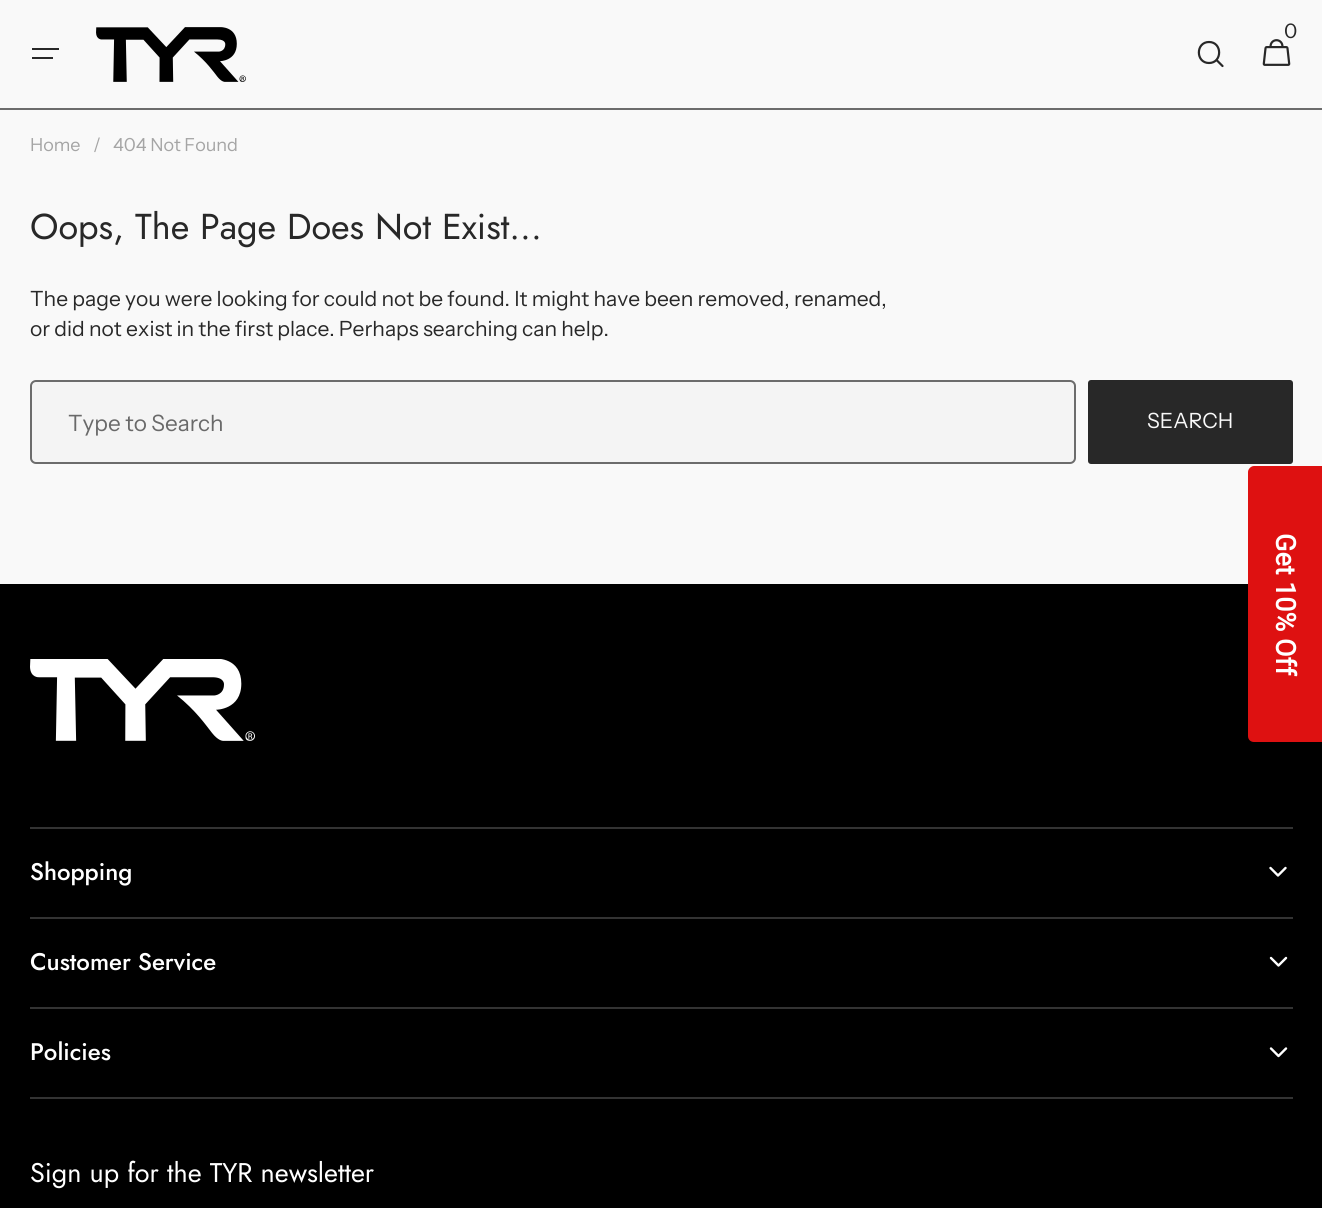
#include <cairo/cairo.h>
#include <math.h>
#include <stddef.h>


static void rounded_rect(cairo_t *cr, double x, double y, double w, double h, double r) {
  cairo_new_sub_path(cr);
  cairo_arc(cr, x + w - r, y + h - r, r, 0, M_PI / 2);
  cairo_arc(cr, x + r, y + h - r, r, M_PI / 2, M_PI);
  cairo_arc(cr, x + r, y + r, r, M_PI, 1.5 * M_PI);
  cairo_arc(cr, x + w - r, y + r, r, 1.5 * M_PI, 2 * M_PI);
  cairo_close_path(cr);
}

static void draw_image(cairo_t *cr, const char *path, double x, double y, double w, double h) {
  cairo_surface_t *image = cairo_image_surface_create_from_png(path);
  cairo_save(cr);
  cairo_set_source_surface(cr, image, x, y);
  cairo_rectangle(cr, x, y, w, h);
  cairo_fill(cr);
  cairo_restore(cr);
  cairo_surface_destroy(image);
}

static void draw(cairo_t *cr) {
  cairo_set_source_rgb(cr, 249 / 255.0, 249 / 255.0, 249 / 255.0);
  cairo_paint(cr);
  cairo_set_source_rgb(cr, 40 / 255.0, 40 / 255.0, 40 / 255.0);
  cairo_rectangle(cr, 32, 48, 27, 2);
  cairo_fill(cr);
  cairo_rectangle(cr, 32, 57, 21, 2);
  cairo_fill(cr);
  draw_image(cr, "images/1.png", 96, 27, 150, 55);
  draw_image(cr, "images/2.png", 1262, 39, 29, 27);
  cairo_new_path(cr);
  cairo_move_to(cr, 1209, 63);
  cairo_curve_to(cr, 1222.5, 63, 1222.5, 42, 1209, 42);
  cairo_curve_to(cr, 1195.5, 42, 1195.5, 63, 1209, 63);
  cairo_close_path(cr);
  cairo_move_to(cr, 1216.5, 60);
  cairo_line_to(cr, 1222.5, 66);
  cairo_set_line_width(cr, 2.2);
  cairo_set_line_cap(cr, CAIRO_LINE_CAP_ROUND);
  cairo_set_line_join(cr, CAIRO_LINE_JOIN_ROUND);
  cairo_stroke(cr);
  cairo_set_source_rgb(cr, 108 / 255.0, 108 / 255.0, 108 / 255.0);
  cairo_rectangle(cr, 0, 108, 1322, 2);
  cairo_fill(cr);
  cairo_set_source_rgb(cr, 244 / 255.0, 244 / 255.0, 244 / 255.0);
  rounded_rect(cr, 31, 381, 1044, 82, 5);
  cairo_fill_preserve(cr);
  cairo_set_source_rgb(cr, 108 / 255.0, 108 / 255.0, 108 / 255.0);
  cairo_set_line_width(cr, 2);
  cairo_set_line_cap(cr, CAIRO_LINE_CAP_BUTT);
  cairo_set_line_join(cr, CAIRO_LINE_JOIN_MITER);
  cairo_stroke(cr);
  cairo_set_source_rgb(cr, 40 / 255.0, 40 / 255.0, 40 / 255.0);
  rounded_rect(cr, 1088, 380, 205, 84, 3);
  cairo_fill(cr);
  cairo_set_source_rgb(cr, 0, 0, 0);
  cairo_rectangle(cr, 0, 584, 1322, 624);
  cairo_fill(cr);
  cairo_set_source_rgb(cr, 222 / 255.0, 17 / 255.0, 17 / 255.0);
  cairo_new_path(cr);
  cairo_move_to(cr, 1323, 466);
  cairo_line_to(cr, 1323, 742);
  cairo_line_to(cr, 1254, 742);
  cairo_curve_to(cr, 1251, 742, 1248, 740, 1248, 736);
  cairo_line_to(cr, 1248, 472);
  cairo_curve_to(cr, 1248, 469, 1251, 466, 1254, 466);
  cairo_close_path(cr);
  cairo_fill(cr);
  draw_image(cr, "images/3.png", 30, 659, 225, 82);
  cairo_set_source_rgb(cr, 51 / 255.0, 51 / 255.0, 51 / 255.0);
  cairo_rectangle(cr, 30, 827, 1263, 2);
  cairo_fill(cr);
  cairo_rectangle(cr, 30, 917, 1263, 2);
  cairo_fill(cr);
  cairo_new_path(cr);
  cairo_move_to(cr, 1285.5, 868);
  cairo_line_to(cr, 1278, 875.5);
  cairo_line_to(cr, 1270.5, 868);
  cairo_set_source_rgb(cr, 1, 1, 1);
  cairo_set_line_width(cr, 2.4);
  cairo_set_line_cap(cr, CAIRO_LINE_CAP_ROUND);
  cairo_set_line_join(cr, CAIRO_LINE_JOIN_ROUND);
  cairo_stroke(cr);
  cairo_set_source_rgb(cr, 51 / 255.0, 51 / 255.0, 51 / 255.0);
  cairo_rectangle(cr, 30, 1007, 1263, 2);
  cairo_fill(cr);
  cairo_new_path(cr);
  cairo_move_to(cr, 1286, 958);
  cairo_line_to(cr, 1278.5, 965.5);
  cairo_line_to(cr, 1271, 958);
  cairo_set_source_rgb(cr, 1, 1, 1);
  cairo_stroke(cr);
  cairo_set_source_rgb(cr, 51 / 255.0, 51 / 255.0, 51 / 255.0);
  cairo_rectangle(cr, 30, 1097, 1263, 2);
  cairo_fill(cr);
  cairo_new_path(cr);
  cairo_move_to(cr, 1286, 1048.5);
  cairo_line_to(cr, 1278.5, 1056);
  cairo_line_to(cr, 1271, 1048.5);
  cairo_set_source_rgb(cr, 1, 1, 1);
  cairo_stroke(cr);
  cairo_select_font_face(cr, "Instrument Sans", CAIRO_FONT_SLANT_NORMAL, CAIRO_FONT_WEIGHT_NORMAL);
  cairo_set_font_size(cr, 20);
  cairo_set_source_rgb(cr, 40 / 255.0, 40 / 255.0, 40 / 255.0);
  cairo_move_to(cr, 1284, 38);
  cairo_show_text(cr, "0");
  cairo_set_font_size(cr, 18);
  cairo_set_source_rgb(cr, 165 / 255.0, 165 / 255.0, 165 / 255.0);
  cairo_move_to(cr, 30, 151);
  cairo_show_text(cr, "Home");
  cairo_move_to(cr, 93, 151);
  cairo_show_text(cr, "/");
  cairo_move_to(cr, 113, 151);
  cairo_show_text(cr, "404 Not Found");
  cairo_select_font_face(cr, "Jost", CAIRO_FONT_SLANT_NORMAL, CAIRO_FONT_WEIGHT_NORMAL);
  cairo_set_font_size(cr, 36);
  cairo_set_source_rgb(cr, 40 / 255.0, 40 / 255.0, 40 / 255.0);
  cairo_move_to(cr, 30, 239);
  cairo_show_text(cr, "Oops, The Page Does Not Exist...");
  cairo_select_font_face(cr, "Instrument Sans", CAIRO_FONT_SLANT_NORMAL, CAIRO_FONT_WEIGHT_NORMAL);
  cairo_set_font_size(cr, 21);
  cairo_move_to(cr, 30, 306);
  cairo_show_text(cr, "The page you were looking for could not be found. It might have been removed, renamed,");
  cairo_move_to(cr, 30, 336);
  cairo_show_text(cr, "or did not exist in the first place. Perhaps searching can help.");
  cairo_set_font_size(cr, 22.5);
  cairo_set_source_rgb(cr, 105 / 255.0, 105 / 255.0, 105 / 255.0);
  cairo_move_to(cr, 68, 431);
  cairo_show_text(cr, "Type to Search");
  cairo_set_font_size(cr, 21);
  cairo_set_source_rgb(cr, 249 / 255.0, 249 / 255.0, 249 / 255.0);
  cairo_move_to(cr, 1147, 428);
  cairo_show_text(cr, "SEARCH");
  cairo_select_font_face(cr, "Roboto", CAIRO_FONT_SLANT_NORMAL, CAIRO_FONT_WEIGHT_BOLD);
  cairo_set_font_size(cr, 27);
  cairo_set_source_rgb(cr, 1, 1, 1);
  cairo_save(cr);
  cairo_translate(cr, 1276, 533);
  cairo_rotate(cr, 90 * M_PI / 180);
  cairo_move_to(cr, 0, 0);
  cairo_show_text(cr, "Get 10% Off");
  cairo_restore(cr);
  cairo_select_font_face(cr, "Jost Medium", CAIRO_FONT_SLANT_NORMAL, CAIRO_FONT_WEIGHT_NORMAL);
  cairo_set_font_size(cr, 24);
  cairo_move_to(cr, 30, 880);
  cairo_show_text(cr, "Shopping");
  cairo_move_to(cr, 30, 970);
  cairo_show_text(cr, "Customer Service");
  cairo_move_to(cr, 30, 1060);
  cairo_show_text(cr, "Policies");
  cairo_select_font_face(cr, "Jost", CAIRO_FONT_SLANT_NORMAL, CAIRO_FONT_WEIGHT_NORMAL);
  cairo_set_font_size(cr, 27);
  cairo_move_to(cr, 30, 1182);
  cairo_show_text(cr, "Sign up for the TYR newsletter");
}

int main(void) {
  cairo_surface_t *surface = cairo_image_surface_create(CAIRO_FORMAT_RGB24, 1322, 1208);
  cairo_t *cr = cairo_create(surface);
  cairo_font_options_t *options = cairo_font_options_create();
  cairo_font_options_set_hint_metrics(options, CAIRO_HINT_METRICS_OFF);
  cairo_font_options_set_hint_style(options, CAIRO_HINT_STYLE_NONE);
  cairo_set_font_options(cr, options);
  cairo_set_miter_limit(cr, 4);
  draw(cr);
  cairo_surface_write_to_png(surface, "out.png");
  cairo_font_options_destroy(options);
  cairo_destroy(cr);
  cairo_surface_destroy(surface);
  return 0;
}
